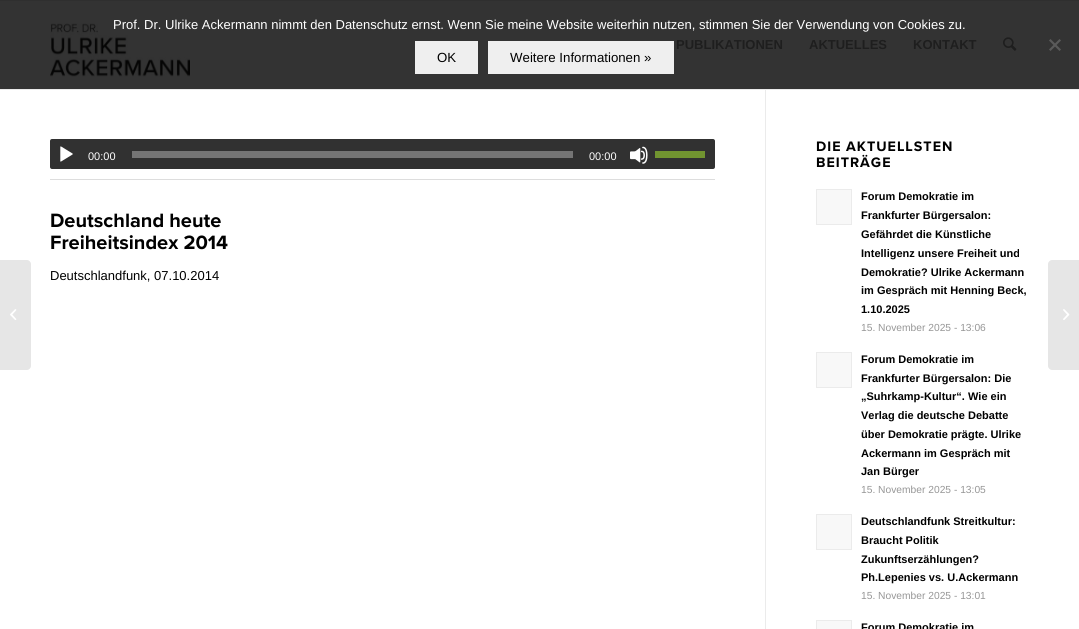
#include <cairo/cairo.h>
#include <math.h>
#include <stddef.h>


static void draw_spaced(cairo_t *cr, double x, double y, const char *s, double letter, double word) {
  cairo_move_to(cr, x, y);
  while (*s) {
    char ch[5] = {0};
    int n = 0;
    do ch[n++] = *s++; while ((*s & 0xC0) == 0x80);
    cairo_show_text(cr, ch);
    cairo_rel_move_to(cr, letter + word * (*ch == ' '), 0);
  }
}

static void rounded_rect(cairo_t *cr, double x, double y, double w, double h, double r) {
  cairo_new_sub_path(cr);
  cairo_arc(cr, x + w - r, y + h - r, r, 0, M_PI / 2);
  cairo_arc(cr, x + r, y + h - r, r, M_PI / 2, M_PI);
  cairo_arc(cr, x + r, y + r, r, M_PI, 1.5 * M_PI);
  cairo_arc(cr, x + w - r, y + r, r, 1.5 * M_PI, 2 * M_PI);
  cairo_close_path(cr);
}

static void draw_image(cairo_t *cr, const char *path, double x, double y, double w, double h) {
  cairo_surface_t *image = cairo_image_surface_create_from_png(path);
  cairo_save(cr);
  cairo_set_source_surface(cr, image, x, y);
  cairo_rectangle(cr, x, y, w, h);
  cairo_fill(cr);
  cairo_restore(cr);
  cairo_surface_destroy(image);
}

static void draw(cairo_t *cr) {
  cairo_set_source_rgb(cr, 1, 1, 1);
  cairo_paint(cr);
  cairo_set_source_rgb(cr, 51 / 255.0, 51 / 255.0, 51 / 255.0);
  cairo_rectangle(cr, 0, 1, 1079, 88);
  cairo_fill(cr);
  cairo_set_source_rgb(cr, 90 / 255.0, 90 / 255.0, 90 / 255.0);
  cairo_new_path(cr);
  cairo_move_to(cr, 1059.5, 39);
  cairo_line_to(cr, 1061, 40.5);
  cairo_line_to(cr, 1050.5, 51);
  cairo_line_to(cr, 1049, 49.5);
  cairo_close_path(cr);
  cairo_fill(cr);
  cairo_new_path(cr);
  cairo_move_to(cr, 1049, 40.5);
  cairo_line_to(cr, 1050.5, 39);
  cairo_line_to(cr, 1061, 49.5);
  cairo_line_to(cr, 1059.5, 51);
  cairo_close_path(cr);
  cairo_fill(cr);
  cairo_set_source_rgb(cr, 239 / 255.0, 239 / 255.0, 239 / 255.0);
  cairo_rectangle(cr, 415, 41, 63, 33);
  cairo_fill(cr);
  cairo_rectangle(cr, 488, 41, 186, 33);
  cairo_fill(cr);
  cairo_set_source_rgb(cr, 47 / 255.0, 47 / 255.0, 47 / 255.0);
  cairo_rectangle(cr, 0, 0, 1079, 1);
  cairo_fill(cr);
  cairo_set_source_rgb(cr, 235 / 255.0, 235 / 255.0, 235 / 255.0);
  cairo_rectangle(cr, 765, 89, 1, 540);
  cairo_fill(cr);
  cairo_rectangle(cr, 0, 89, 1079, 1);
  cairo_fill(cr);
  draw_image(cr, "images/1.png", 50, 23, 140, 54);
  draw_image(cr, "images/2.png", 1003, 37, 14, 14);
  cairo_set_source_rgb(cr, 230 / 255.0, 230 / 255.0, 230 / 255.0);
  cairo_new_path(cr);
  cairo_move_to(cr, 0, 260);
  cairo_line_to(cr, 27, 260);
  cairo_curve_to(cr, 29, 260, 31, 262, 31, 264);
  cairo_line_to(cr, 31, 366);
  cairo_curve_to(cr, 31, 368, 29, 370, 27, 370);
  cairo_line_to(cr, 0, 370);
  cairo_close_path(cr);
  cairo_fill(cr);
  draw_image(cr, "images/3.png", 10, 309, 7, 11);
  cairo_set_source_rgb(cr, 49 / 255.0, 49 / 255.0, 49 / 255.0);
  rounded_rect(cr, 50, 139, 665, 30, 2);
  cairo_fill(cr);
  draw_image(cr, "images/4.png", 60, 146, 13, 16);
  cairo_set_source_rgb(cr, 117 / 255.0, 117 / 255.0, 117 / 255.0);
  cairo_rectangle(cr, 132, 151, 441, 7);
  cairo_fill(cr);
  draw_image(cr, "images/5.png", 630, 146, 18, 18);
  cairo_set_source_rgb(cr, 113 / 255.0, 148 / 255.0, 48 / 255.0);
  cairo_rectangle(cr, 655, 151, 50, 7);
  cairo_fill(cr);
  cairo_set_source_rgb(cr, 221 / 255.0, 221 / 255.0, 221 / 255.0);
  cairo_rectangle(cr, 50, 179, 665, 1);
  cairo_fill(cr);
  cairo_set_source_rgb(cr, 248 / 255.0, 248 / 255.0, 248 / 255.0);
  cairo_rectangle(cr, 816.5, 189.5, 35, 35);
  cairo_fill_preserve(cr);
  cairo_set_source_rgb(cr, 235 / 255.0, 235 / 255.0, 235 / 255.0);
  cairo_set_line_width(cr, 1);
  cairo_stroke(cr);
  cairo_set_source_rgb(cr, 248 / 255.0, 248 / 255.0, 248 / 255.0);
  cairo_rectangle(cr, 816.5, 352.5, 35, 35);
  cairo_fill_preserve(cr);
  cairo_set_source_rgb(cr, 235 / 255.0, 235 / 255.0, 235 / 255.0);
  cairo_stroke(cr);
  cairo_set_source_rgb(cr, 248 / 255.0, 248 / 255.0, 248 / 255.0);
  cairo_rectangle(cr, 816.5, 514.5, 35, 35);
  cairo_fill_preserve(cr);
  cairo_set_source_rgb(cr, 235 / 255.0, 235 / 255.0, 235 / 255.0);
  cairo_stroke(cr);
  cairo_set_source_rgb(cr, 248 / 255.0, 248 / 255.0, 248 / 255.0);
  cairo_rectangle(cr, 816.5, 620.5, 35, 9);
  cairo_fill_preserve(cr);
  cairo_set_source_rgb(cr, 235 / 255.0, 235 / 255.0, 235 / 255.0);
  cairo_stroke(cr);
  cairo_set_source_rgb(cr, 230 / 255.0, 230 / 255.0, 230 / 255.0);
  cairo_new_path(cr);
  cairo_move_to(cr, 1052, 260);
  cairo_line_to(cr, 1079, 260);
  cairo_line_to(cr, 1079, 370);
  cairo_line_to(cr, 1052, 370);
  cairo_curve_to(cr, 1050, 370, 1048, 368, 1048, 366);
  cairo_line_to(cr, 1048, 264);
  cairo_curve_to(cr, 1048, 262, 1050, 260, 1052, 260);
  cairo_close_path(cr);
  cairo_fill(cr);
  draw_image(cr, "images/6.png", 1063, 309, 7, 11);
  cairo_select_font_face(cr, "Liberation Sans", CAIRO_FONT_SLANT_NORMAL, CAIRO_FONT_WEIGHT_NORMAL);
  cairo_set_font_size(cr, 13);
  cairo_set_source_rgb(cr, 1, 1, 1);
  cairo_move_to(cr, 113, 29);
  cairo_show_text(cr, "Prof. Dr. Ulrike Ackermann nimmt den Datenschutz ernst. Wenn Sie meine Website weiterhin nutzen, stimmen Sie der Verwendung von Cookies zu.");
  cairo_set_font_size(cr, 13.25);
  cairo_set_source_rgb(cr, 0, 0, 0);
  cairo_move_to(cr, 437, 62);
  cairo_show_text(cr, "OK");
  cairo_move_to(cr, 510, 62);
  cairo_show_text(cr, "Weitere Informationen »");
  cairo_select_font_face(cr, "Liberation Sans", CAIRO_FONT_SLANT_NORMAL, CAIRO_FONT_WEIGHT_BOLD);
  cairo_set_font_size(cr, 13);
  cairo_set_source_rgb(cr, 30 / 255.0, 30 / 255.0, 30 / 255.0);
  cairo_move_to(cr, 676, 49);
  cairo_show_text(cr, "PUBLIKATIONEN");
  cairo_move_to(cr, 809, 49);
  cairo_show_text(cr, "AKTUELLES");
  cairo_move_to(cr, 913, 49);
  cairo_show_text(cr, "KONTAKT");
  cairo_select_font_face(cr, "Liberation Sans", CAIRO_FONT_SLANT_NORMAL, CAIRO_FONT_WEIGHT_NORMAL);
  cairo_set_font_size(cr, 11);
  cairo_set_source_rgb(cr, 1, 1, 1);
  cairo_move_to(cr, 88, 160);
  cairo_show_text(cr, "00:00");
  cairo_move_to(cr, 589, 160);
  cairo_show_text(cr, "00:00");
  cairo_select_font_face(cr, "Proxima Nova", CAIRO_FONT_SLANT_NORMAL, CAIRO_FONT_WEIGHT_BOLD);
  cairo_set_font_size(cr, 20);
  cairo_set_source_rgb(cr, 0, 0, 0);
  cairo_move_to(cr, 50, 227);
  cairo_show_text(cr, "Deutschland heute");
  cairo_move_to(cr, 50, 249);
  cairo_show_text(cr, "Freiheitsindex 2014");
  cairo_select_font_face(cr, "Liberation Sans", CAIRO_FONT_SLANT_NORMAL, CAIRO_FONT_WEIGHT_NORMAL);
  cairo_set_font_size(cr, 13);
  cairo_move_to(cr, 50, 280);
  cairo_show_text(cr, "Deutschlandfunk, 07.10.2014");
  cairo_select_font_face(cr, "Proxima Nova", CAIRO_FONT_SLANT_NORMAL, CAIRO_FONT_WEIGHT_BOLD);
  cairo_set_font_size(cr, 14.25);
  draw_spaced(cr, 816, 151, "DIE AKTUELLSTEN", 1, 0);
  draw_spaced(cr, 816, 167, "BEITRÄGE", 1, 0);
  cairo_select_font_face(cr, "Liberation Sans", CAIRO_FONT_SLANT_NORMAL, CAIRO_FONT_WEIGHT_BOLD);
  cairo_set_font_size(cr, 11);
  cairo_move_to(cr, 861, 200);
  cairo_show_text(cr, "Forum Demokratie im");
  cairo_move_to(cr, 861, 219);
  cairo_show_text(cr, "Frankfurter Bürgersalon:");
  cairo_move_to(cr, 861, 238);
  cairo_show_text(cr, "Gefährdet die Künstliche");
  cairo_move_to(cr, 861, 257);
  cairo_show_text(cr, "Intelligenz unsere Freiheit und");
  cairo_move_to(cr, 861, 276);
  cairo_show_text(cr, "Demokratie? Ulrike Ackermann");
  cairo_move_to(cr, 861, 294);
  cairo_show_text(cr, "im Gespräch mit Henning Beck,");
  cairo_move_to(cr, 861, 313);
  cairo_show_text(cr, "1.10.2025");
  cairo_select_font_face(cr, "Liberation Sans", CAIRO_FONT_SLANT_NORMAL, CAIRO_FONT_WEIGHT_NORMAL);
  cairo_set_font_size(cr, 10.25);
  cairo_set_source_rgb(cr, 150 / 255.0, 150 / 255.0, 150 / 255.0);
  cairo_move_to(cr, 861, 331);
  cairo_show_text(cr, "15. November 2025 - 13:06");
  cairo_select_font_face(cr, "Liberation Sans", CAIRO_FONT_SLANT_NORMAL, CAIRO_FONT_WEIGHT_BOLD);
  cairo_set_font_size(cr, 11);
  cairo_set_source_rgb(cr, 0, 0, 0);
  cairo_move_to(cr, 861, 363);
  cairo_show_text(cr, "Forum Demokratie im");
  cairo_move_to(cr, 861, 382);
  cairo_show_text(cr, "Frankfurter Bürgersalon: Die");
  cairo_move_to(cr, 861, 400);
  cairo_show_text(cr, "„Suhrkamp-Kultur“. Wie ein");
  cairo_move_to(cr, 861, 419);
  cairo_show_text(cr, "Verlag die deutsche Debatte");
  cairo_move_to(cr, 861, 438);
  cairo_show_text(cr, "über Demokratie prägte. Ulrike");
  cairo_move_to(cr, 861, 457);
  cairo_show_text(cr, "Ackermann im Gespräch mit");
  cairo_move_to(cr, 861, 475);
  cairo_show_text(cr, "Jan Bürger");
  cairo_select_font_face(cr, "Liberation Sans", CAIRO_FONT_SLANT_NORMAL, CAIRO_FONT_WEIGHT_NORMAL);
  cairo_set_font_size(cr, 10.25);
  cairo_set_source_rgb(cr, 150 / 255.0, 150 / 255.0, 150 / 255.0);
  cairo_move_to(cr, 861, 493);
  cairo_show_text(cr, "15. November 2025 - 13:05");
  cairo_select_font_face(cr, "Liberation Sans", CAIRO_FONT_SLANT_NORMAL, CAIRO_FONT_WEIGHT_BOLD);
  cairo_set_font_size(cr, 11);
  cairo_set_source_rgb(cr, 0, 0, 0);
  cairo_move_to(cr, 861, 525);
  cairo_show_text(cr, "Deutschlandfunk Streitkultur:");
  cairo_move_to(cr, 861, 544);
  cairo_show_text(cr, "Braucht Politik");
  cairo_move_to(cr, 861, 563);
  cairo_show_text(cr, "Zukunftserzählungen?");
  cairo_move_to(cr, 861, 581);
  cairo_show_text(cr, "Ph.Lepenies vs. U.Ackermann");
  cairo_select_font_face(cr, "Liberation Sans", CAIRO_FONT_SLANT_NORMAL, CAIRO_FONT_WEIGHT_NORMAL);
  cairo_set_font_size(cr, 10.25);
  cairo_set_source_rgb(cr, 150 / 255.0, 150 / 255.0, 150 / 255.0);
  cairo_move_to(cr, 861, 599);
  cairo_show_text(cr, "15. November 2025 - 13:01");
  cairo_select_font_face(cr, "Liberation Sans", CAIRO_FONT_SLANT_NORMAL, CAIRO_FONT_WEIGHT_BOLD);
  cairo_set_font_size(cr, 11);
  cairo_set_source_rgb(cr, 0, 0, 0);
  cairo_move_to(cr, 861, 631);
  cairo_show_text(cr, "Forum Demokratie im");
}

int main(void) {
  cairo_surface_t *surface = cairo_image_surface_create(CAIRO_FORMAT_RGB24, 1079, 629);
  cairo_t *cr = cairo_create(surface);
  cairo_font_options_t *options = cairo_font_options_create();
  cairo_font_options_set_hint_metrics(options, CAIRO_HINT_METRICS_OFF);
  cairo_font_options_set_hint_style(options, CAIRO_HINT_STYLE_NONE);
  cairo_set_font_options(cr, options);
  cairo_set_miter_limit(cr, 4);
  draw(cr);
  cairo_surface_write_to_png(surface, "out.png");
  cairo_font_options_destroy(options);
  cairo_destroy(cr);
  cairo_surface_destroy(surface);
  return 0;
}
